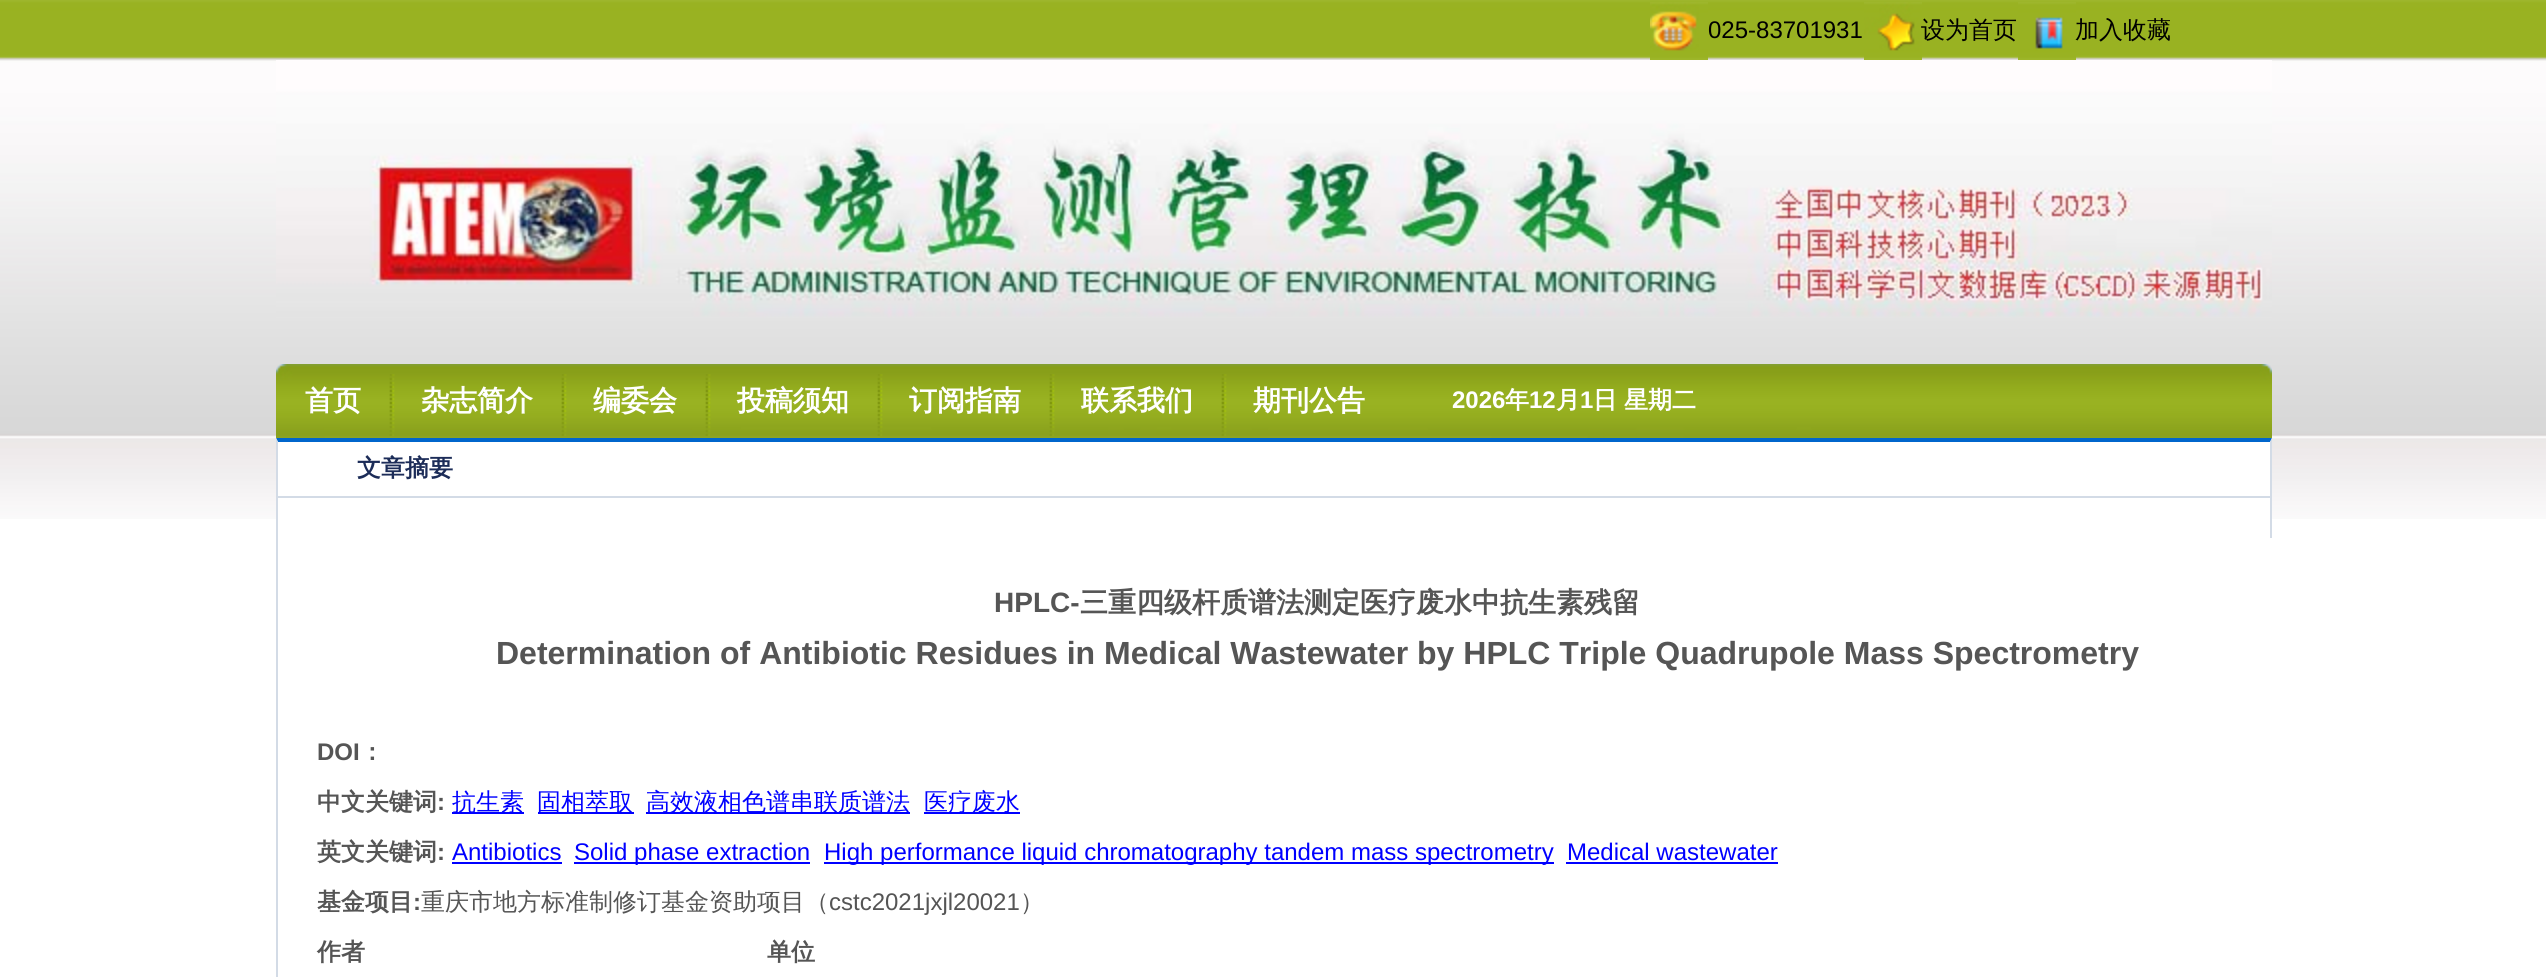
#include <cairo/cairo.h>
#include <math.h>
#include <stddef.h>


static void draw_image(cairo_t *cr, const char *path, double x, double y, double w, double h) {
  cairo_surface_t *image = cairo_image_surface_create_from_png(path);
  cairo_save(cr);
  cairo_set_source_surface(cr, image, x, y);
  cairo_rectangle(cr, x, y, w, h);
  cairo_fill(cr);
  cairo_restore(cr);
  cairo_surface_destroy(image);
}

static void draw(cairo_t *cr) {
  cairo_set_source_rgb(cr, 1, 1, 1);
  cairo_paint(cr);
  draw_image(cr, "images/1.png", 0, 0, 2546, 519);
  draw_image(cr, "images/2.png", 1650, 2, 58, 58);
  draw_image(cr, "images/3.png", 1864, 2, 58, 58);
  draw_image(cr, "images/4.png", 2018, 2, 58, 58);
  draw_image(cr, "images/5.png", 276, 60, 1996, 258);
  draw_image(cr, "images/6.png", 276, 364, 1996, 74);
  draw_image(cr, "images/7.png", 389, 374, 6, 62);
  draw_image(cr, "images/7.png", 561, 374, 6, 62);
  draw_image(cr, "images/7.png", 705, 374, 6, 62);
  draw_image(cr, "images/7.png", 877, 374, 6, 62);
  draw_image(cr, "images/7.png", 1049, 374, 6, 62);
  draw_image(cr, "images/7.png", 1221, 374, 6, 62);
  cairo_set_source_rgb(cr, 1, 1, 1);
  cairo_rectangle(cr, 276, 438, 1996, 81);
  cairo_fill(cr);
  cairo_set_source_rgb(cr, 0, 102 / 255.0, 204 / 255.0);
  cairo_new_path(cr);
  cairo_move_to(cr, 276, 438);
  cairo_line_to(cr, 2272, 438);
  cairo_line_to(cr, 2270, 442);
  cairo_line_to(cr, 278, 442);
  cairo_close_path(cr);
  cairo_fill(cr);
  cairo_set_source_rgb(cr, 211 / 255.0, 219 / 255.0, 230 / 255.0);
  cairo_new_path(cr);
  cairo_move_to(cr, 2272, 438);
  cairo_line_to(cr, 2272, 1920);
  cairo_line_to(cr, 2270, 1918);
  cairo_line_to(cr, 2270, 442);
  cairo_close_path(cr);
  cairo_fill(cr);
  cairo_new_path(cr);
  cairo_move_to(cr, 276, 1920);
  cairo_line_to(cr, 276, 438);
  cairo_line_to(cr, 278, 442);
  cairo_line_to(cr, 278, 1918);
  cairo_close_path(cr);
  cairo_fill(cr);
  cairo_rectangle(cr, 278, 496, 1992, 2);
  cairo_fill(cr);
  cairo_set_source_rgb(cr, 1, 1, 1);
  cairo_rectangle(cr, 2270, 538, 2, 439);
  cairo_fill(cr);
  cairo_set_source_rgb(cr, 0, 0, 1);
  cairo_rectangle(cr, 452, 812, 72, 2);
  cairo_fill(cr);
  cairo_rectangle(cr, 538, 812, 96, 2);
  cairo_fill(cr);
  cairo_rectangle(cr, 646, 812, 264, 2);
  cairo_fill(cr);
  cairo_rectangle(cr, 924, 812, 96, 2);
  cairo_fill(cr);
  cairo_rectangle(cr, 452, 862, 110, 2);
  cairo_fill(cr);
  cairo_rectangle(cr, 574, 862, 236, 2);
  cairo_fill(cr);
  cairo_rectangle(cr, 824, 862, 730, 2);
  cairo_fill(cr);
  cairo_rectangle(cr, 1566, 862, 212, 2);
  cairo_fill(cr);
  cairo_select_font_face(cr, "Liberation Sans", CAIRO_FONT_SLANT_NORMAL, CAIRO_FONT_WEIGHT_NORMAL);
  cairo_set_font_size(cr, 24);
  cairo_set_source_rgb(cr, 0, 0, 0);
  cairo_move_to(cr, 1708, 38);
  cairo_show_text(cr, "025-83701931");
  cairo_select_font_face(cr, "WenQuanYi Zen Hei Medium", CAIRO_FONT_SLANT_NORMAL, CAIRO_FONT_WEIGHT_NORMAL);
  cairo_move_to(cr, 1921, 38);
  cairo_show_text(cr, "设为首页");
  cairo_move_to(cr, 2075, 38);
  cairo_show_text(cr, "加入收藏");
  cairo_select_font_face(cr, "WenQuanYi Zen Hei", CAIRO_FONT_SLANT_NORMAL, CAIRO_FONT_WEIGHT_BOLD);
  cairo_set_font_size(cr, 28);
  cairo_set_source_rgb(cr, 1, 1, 1);
  cairo_move_to(cr, 305, 410);
  cairo_show_text(cr, "首页");
  cairo_move_to(cr, 421, 410);
  cairo_show_text(cr, "杂志简介");
  cairo_move_to(cr, 593, 410);
  cairo_show_text(cr, "编委会");
  cairo_move_to(cr, 737, 410);
  cairo_show_text(cr, "投稿须知");
  cairo_move_to(cr, 909, 410);
  cairo_show_text(cr, "订阅指南");
  cairo_move_to(cr, 1081, 410);
  cairo_show_text(cr, "联系我们");
  cairo_move_to(cr, 1253, 410);
  cairo_show_text(cr, "期刊公告");
  cairo_select_font_face(cr, "Liberation Sans", CAIRO_FONT_SLANT_NORMAL, CAIRO_FONT_WEIGHT_BOLD);
  cairo_set_font_size(cr, 24);
  cairo_move_to(cr, 1452, 408);
  cairo_show_text(cr, "2026");
  cairo_select_font_face(cr, "WenQuanYi Zen Hei", CAIRO_FONT_SLANT_NORMAL, CAIRO_FONT_WEIGHT_BOLD);
  cairo_move_to(cr, 1505, 408);
  cairo_show_text(cr, "年");
  cairo_select_font_face(cr, "Liberation Sans", CAIRO_FONT_SLANT_NORMAL, CAIRO_FONT_WEIGHT_BOLD);
  cairo_move_to(cr, 1529, 408);
  cairo_show_text(cr, "12");
  cairo_select_font_face(cr, "WenQuanYi Zen Hei", CAIRO_FONT_SLANT_NORMAL, CAIRO_FONT_WEIGHT_BOLD);
  cairo_move_to(cr, 1556, 408);
  cairo_show_text(cr, "月");
  cairo_select_font_face(cr, "Liberation Sans", CAIRO_FONT_SLANT_NORMAL, CAIRO_FONT_WEIGHT_BOLD);
  cairo_move_to(cr, 1580, 408);
  cairo_show_text(cr, "1");
  cairo_select_font_face(cr, "WenQuanYi Zen Hei", CAIRO_FONT_SLANT_NORMAL, CAIRO_FONT_WEIGHT_BOLD);
  cairo_move_to(cr, 1593, 408);
  cairo_show_text(cr, "日");
  cairo_move_to(cr, 1624, 408);
  cairo_show_text(cr, "星期二");
  cairo_set_source_rgb(cr, 28 / 255.0, 44 / 255.0, 88 / 255.0);
  cairo_move_to(cr, 357, 476);
  cairo_show_text(cr, "文章摘要");
  cairo_select_font_face(cr, "Liberation Sans", CAIRO_FONT_SLANT_NORMAL, CAIRO_FONT_WEIGHT_BOLD);
  cairo_set_font_size(cr, 28);
  cairo_set_source_rgb(cr, 85 / 255.0, 85 / 255.0, 85 / 255.0);
  cairo_move_to(cr, 994, 612);
  cairo_show_text(cr, "HPLC-");
  cairo_select_font_face(cr, "WenQuanYi Zen Hei", CAIRO_FONT_SLANT_NORMAL, CAIRO_FONT_WEIGHT_BOLD);
  cairo_move_to(cr, 1080, 612);
  cairo_show_text(cr, "三重四级杆质谱法测定医疗废水中抗生素残留");
  cairo_select_font_face(cr, "Liberation Sans", CAIRO_FONT_SLANT_NORMAL, CAIRO_FONT_WEIGHT_BOLD);
  cairo_set_font_size(cr, 32);
  cairo_move_to(cr, 496, 664);
  cairo_show_text(cr, "Determination of Antibiotic Residues in Medical Wastewater by HPLC Triple Quadrupole Mass Spectrometry");
  cairo_set_font_size(cr, 24);
  cairo_move_to(cr, 317, 760);
  cairo_show_text(cr, "DOI");
  cairo_select_font_face(cr, "WenQuanYi Zen Hei", CAIRO_FONT_SLANT_NORMAL, CAIRO_FONT_WEIGHT_BOLD);
  cairo_move_to(cr, 360, 760);
  cairo_show_text(cr, "：");
  cairo_move_to(cr, 317, 810);
  cairo_show_text(cr, "中文关键词");
  cairo_select_font_face(cr, "Liberation Sans", CAIRO_FONT_SLANT_NORMAL, CAIRO_FONT_WEIGHT_BOLD);
  cairo_move_to(cr, 437, 810);
  cairo_show_text(cr, ":");
  cairo_select_font_face(cr, "WenQuanYi Zen Hei Medium", CAIRO_FONT_SLANT_NORMAL, CAIRO_FONT_WEIGHT_NORMAL);
  cairo_set_source_rgb(cr, 0, 0, 1);
  cairo_move_to(cr, 452, 810);
  cairo_show_text(cr, "抗生素");
  cairo_move_to(cr, 537, 810);
  cairo_show_text(cr, "固相萃取");
  cairo_move_to(cr, 646, 810);
  cairo_show_text(cr, "高效液相色谱串联质谱法");
  cairo_move_to(cr, 924, 810);
  cairo_show_text(cr, "医疗废水");
  cairo_select_font_face(cr, "WenQuanYi Zen Hei", CAIRO_FONT_SLANT_NORMAL, CAIRO_FONT_WEIGHT_BOLD);
  cairo_set_source_rgb(cr, 85 / 255.0, 85 / 255.0, 85 / 255.0);
  cairo_move_to(cr, 317, 860);
  cairo_show_text(cr, "英文关键词");
  cairo_select_font_face(cr, "Liberation Sans", CAIRO_FONT_SLANT_NORMAL, CAIRO_FONT_WEIGHT_BOLD);
  cairo_move_to(cr, 437, 860);
  cairo_show_text(cr, ":");
  cairo_select_font_face(cr, "Liberation Sans", CAIRO_FONT_SLANT_NORMAL, CAIRO_FONT_WEIGHT_NORMAL);
  cairo_set_source_rgb(cr, 0, 0, 1);
  cairo_move_to(cr, 452, 860);
  cairo_show_text(cr, "Antibiotics");
  cairo_move_to(cr, 574, 860);
  cairo_show_text(cr, "Solid phase extraction");
  cairo_move_to(cr, 824, 860);
  cairo_show_text(cr, "High performance liquid chromatography tandem mass spectrometry");
  cairo_move_to(cr, 1567, 860);
  cairo_show_text(cr, "Medical wastewater");
  cairo_select_font_face(cr, "WenQuanYi Zen Hei", CAIRO_FONT_SLANT_NORMAL, CAIRO_FONT_WEIGHT_BOLD);
  cairo_set_source_rgb(cr, 85 / 255.0, 85 / 255.0, 85 / 255.0);
  cairo_move_to(cr, 317, 910);
  cairo_show_text(cr, "基金项目");
  cairo_select_font_face(cr, "Liberation Sans", CAIRO_FONT_SLANT_NORMAL, CAIRO_FONT_WEIGHT_BOLD);
  cairo_move_to(cr, 413, 910);
  cairo_show_text(cr, ":");
  cairo_select_font_face(cr, "WenQuanYi Zen Hei Medium", CAIRO_FONT_SLANT_NORMAL, CAIRO_FONT_WEIGHT_NORMAL);
  cairo_move_to(cr, 421, 910);
  cairo_show_text(cr, "重庆市地方标准制修订基金资助项目（");
  cairo_select_font_face(cr, "Liberation Sans", CAIRO_FONT_SLANT_NORMAL, CAIRO_FONT_WEIGHT_NORMAL);
  cairo_move_to(cr, 829, 910);
  cairo_show_text(cr, "cstc2021jxjl20021");
  cairo_select_font_face(cr, "WenQuanYi Zen Hei Medium", CAIRO_FONT_SLANT_NORMAL, CAIRO_FONT_WEIGHT_NORMAL);
  cairo_move_to(cr, 1020, 910);
  cairo_show_text(cr, "）");
  cairo_select_font_face(cr, "WenQuanYi Zen Hei", CAIRO_FONT_SLANT_NORMAL, CAIRO_FONT_WEIGHT_BOLD);
  cairo_move_to(cr, 317, 960);
  cairo_show_text(cr, "作者");
  cairo_move_to(cr, 767, 960);
  cairo_show_text(cr, "单位");
}

int main(void) {
  cairo_surface_t *surface = cairo_image_surface_create(CAIRO_FORMAT_RGB24, 2546, 977);
  cairo_t *cr = cairo_create(surface);
  cairo_font_options_t *options = cairo_font_options_create();
  cairo_font_options_set_hint_metrics(options, CAIRO_HINT_METRICS_OFF);
  cairo_font_options_set_hint_style(options, CAIRO_HINT_STYLE_NONE);
  cairo_set_font_options(cr, options);
  cairo_set_miter_limit(cr, 4);
  draw(cr);
  cairo_surface_write_to_png(surface, "out.png");
  cairo_font_options_destroy(options);
  cairo_destroy(cr);
  cairo_surface_destroy(surface);
  return 0;
}
